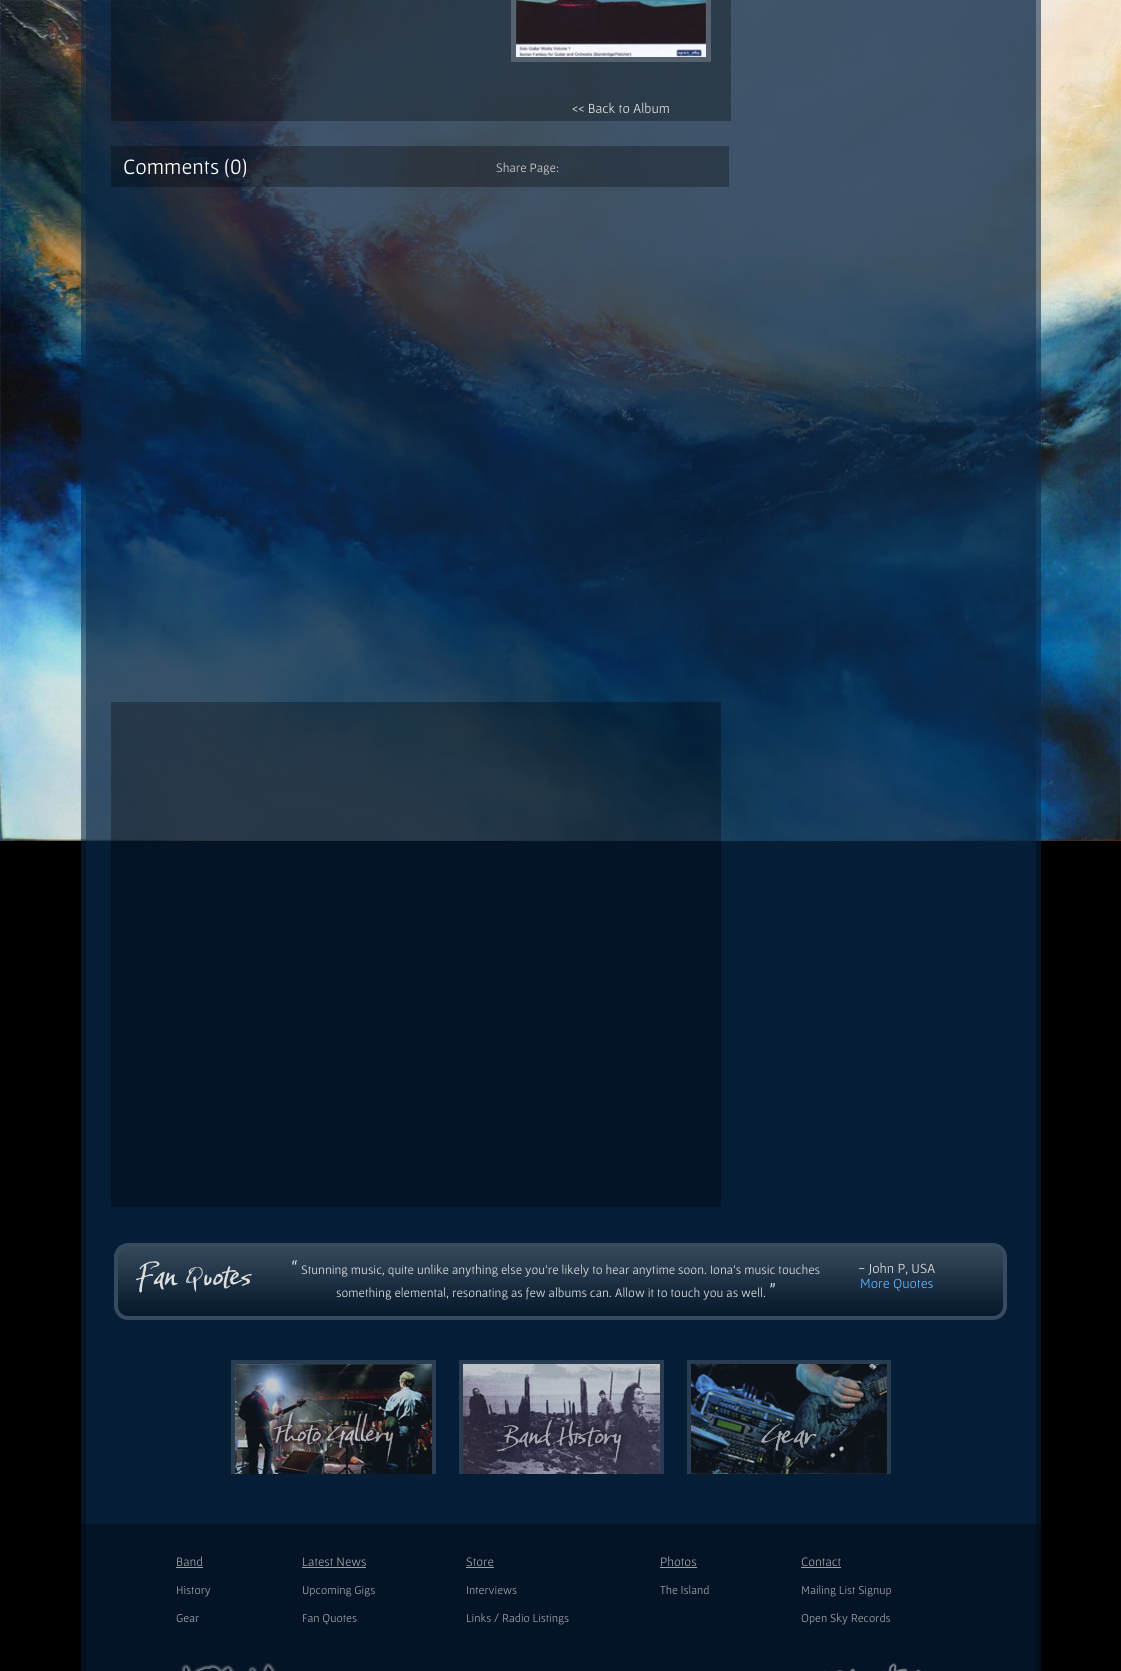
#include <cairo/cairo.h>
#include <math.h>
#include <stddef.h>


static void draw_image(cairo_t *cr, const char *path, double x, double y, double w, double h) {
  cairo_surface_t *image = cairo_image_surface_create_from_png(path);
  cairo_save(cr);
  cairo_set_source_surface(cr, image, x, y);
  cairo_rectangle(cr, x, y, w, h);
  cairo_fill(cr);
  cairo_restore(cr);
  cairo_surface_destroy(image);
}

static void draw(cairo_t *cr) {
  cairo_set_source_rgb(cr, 0, 0, 0);
  cairo_paint(cr);
  draw_image(cr, "images/1.png", 0, 0, 1121, 841);
  draw_image(cr, "images/2.png", 81, 0, 960, 1671);
  cairo_set_source_rgba(cr, 0, 0, 0, 0.3);
  cairo_rectangle(cr, 111, 0, 620, 121);
  cairo_fill(cr);
  draw_image(cr, "images/3.png", 511, 0, 200, 62);
  cairo_rectangle(cr, 111, 146, 618, 41);
  cairo_fill(cr);
  cairo_rectangle(cr, 111, 702, 610, 505);
  cairo_fill(cr);
  draw_image(cr, "images/4.png", 114, 1243, 893, 77);
  draw_image(cr, "images/5.png", 135, 1261, 43, 32);
  draw_image(cr, "images/6.png", 186, 1266, 66, 26);
  cairo_set_source_rgb(cr, 41 / 255.0, 61 / 255.0, 82 / 255.0);
  cairo_rectangle(cr, 231, 1360, 205, 114);
  cairo_fill(cr);
  draw_image(cr, "images/7.png", 235, 1364, 197, 110);
  cairo_rectangle(cr, 459, 1360, 205, 114);
  cairo_fill(cr);
  draw_image(cr, "images/8.png", 463, 1364, 197, 110);
  cairo_rectangle(cr, 687, 1360, 204, 114);
  cairo_fill(cr);
  draw_image(cr, "images/9.png", 691, 1364, 196, 110);
  cairo_set_source_rgba(cr, 0, 0, 0, 0.3);
  cairo_rectangle(cr, 81, 1524, 960, 109);
  cairo_fill(cr);
  cairo_set_source_rgb(cr, 156 / 255.0, 161 / 255.0, 166 / 255.0);
  cairo_rectangle(cr, 176, 1567, 27, 1);
  cairo_fill(cr);
  cairo_rectangle(cr, 302, 1567, 64, 1);
  cairo_fill(cr);
  cairo_rectangle(cr, 466, 1567, 28, 1);
  cairo_fill(cr);
  cairo_rectangle(cr, 660, 1567, 37, 1);
  cairo_fill(cr);
  cairo_rectangle(cr, 801, 1567, 40, 1);
  cairo_fill(cr);
  cairo_set_source_rgba(cr, 0, 0, 0, 0.3);
  cairo_rectangle(cr, 81, 1633, 960, 38);
  cairo_fill(cr);
  draw_image(cr, "images/10.png", 181, 1663, 95, 8);
  draw_image(cr, "images/11.png", 823, 1663, 98, 8);
  cairo_select_font_face(cr, "Gafata", CAIRO_FONT_SLANT_NORMAL, CAIRO_FONT_WEIGHT_NORMAL);
  cairo_set_font_size(cr, 14);
  cairo_set_source_rgb(cr, 221 / 255.0, 221 / 255.0, 221 / 255.0);
  cairo_move_to(cr, 572, 113);
  cairo_show_text(cr, "<< Back to Album");
  cairo_set_font_size(cr, 22);
  cairo_set_source_rgb(cr, 1, 1, 1);
  cairo_move_to(cr, 123, 174);
  cairo_show_text(cr, "Comments (0)");
  cairo_set_font_size(cr, 13);
  cairo_set_source_rgb(cr, 204 / 255.0, 204 / 255.0, 204 / 255.0);
  cairo_move_to(cr, 496, 172);
  cairo_show_text(cr, "Share Page:");
  cairo_set_font_size(cr, 21);
  cairo_set_source_rgb(cr, 221 / 255.0, 221 / 255.0, 221 / 255.0);
  cairo_move_to(cr, 291, 1274);
  cairo_show_text(cr, "“");
  cairo_set_font_size(cr, 13);
  cairo_move_to(cr, 301, 1274);
  cairo_show_text(cr, "Stunning music, quite unlike anything else you're likely to hear anytime soon. Iona's music touches");
  cairo_set_font_size(cr, 21);
  cairo_move_to(cr, 769, 1297);
  cairo_show_text(cr, "”");
  cairo_set_font_size(cr, 13);
  cairo_move_to(cr, 336, 1297);
  cairo_show_text(cr, "something elemental, resonating as few albums can. Allow it to touch you as well.");
  cairo_set_font_size(cr, 14);
  cairo_move_to(cr, 858, 1273);
  cairo_show_text(cr, "- John P, USA");
  cairo_set_source_rgb(cr, 96 / 255.0, 178 / 255.0, 1);
  cairo_move_to(cr, 860, 1288);
  cairo_show_text(cr, "More Quotes");
  cairo_set_font_size(cr, 13);
  cairo_set_source_rgb(cr, 156 / 255.0, 161 / 255.0, 166 / 255.0);
  cairo_move_to(cr, 176, 1566);
  cairo_show_text(cr, "Band");
  cairo_set_font_size(cr, 12);
  cairo_move_to(cr, 176, 1594);
  cairo_show_text(cr, "History");
  cairo_move_to(cr, 176, 1622);
  cairo_show_text(cr, "Gear");
  cairo_set_font_size(cr, 13);
  cairo_move_to(cr, 302, 1566);
  cairo_show_text(cr, "Latest News");
  cairo_set_font_size(cr, 12);
  cairo_move_to(cr, 302, 1594);
  cairo_show_text(cr, "Upcoming Gigs");
  cairo_move_to(cr, 302, 1622);
  cairo_show_text(cr, "Fan Quotes");
  cairo_set_font_size(cr, 13);
  cairo_move_to(cr, 466, 1566);
  cairo_show_text(cr, "Store");
  cairo_set_font_size(cr, 12);
  cairo_move_to(cr, 466, 1594);
  cairo_show_text(cr, "Interviews");
  cairo_move_to(cr, 466, 1622);
  cairo_show_text(cr, "Links / Radio Listings");
  cairo_set_font_size(cr, 13);
  cairo_move_to(cr, 660, 1566);
  cairo_show_text(cr, "Photos");
  cairo_set_font_size(cr, 12);
  cairo_move_to(cr, 660, 1594);
  cairo_show_text(cr, "The Island");
  cairo_set_font_size(cr, 13);
  cairo_move_to(cr, 801, 1566);
  cairo_show_text(cr, "Contact");
  cairo_set_font_size(cr, 12);
  cairo_move_to(cr, 801, 1594);
  cairo_show_text(cr, "Mailing List Signup");
  cairo_move_to(cr, 801, 1622);
  cairo_show_text(cr, "Open Sky Records");
}

int main(void) {
  cairo_surface_t *surface = cairo_image_surface_create(CAIRO_FORMAT_RGB24, 1121, 1671);
  cairo_t *cr = cairo_create(surface);
  cairo_font_options_t *options = cairo_font_options_create();
  cairo_font_options_set_hint_metrics(options, CAIRO_HINT_METRICS_OFF);
  cairo_font_options_set_hint_style(options, CAIRO_HINT_STYLE_NONE);
  cairo_set_font_options(cr, options);
  cairo_set_miter_limit(cr, 4);
  draw(cr);
  cairo_surface_write_to_png(surface, "out.png");
  cairo_font_options_destroy(options);
  cairo_destroy(cr);
  cairo_surface_destroy(surface);
  return 0;
}
